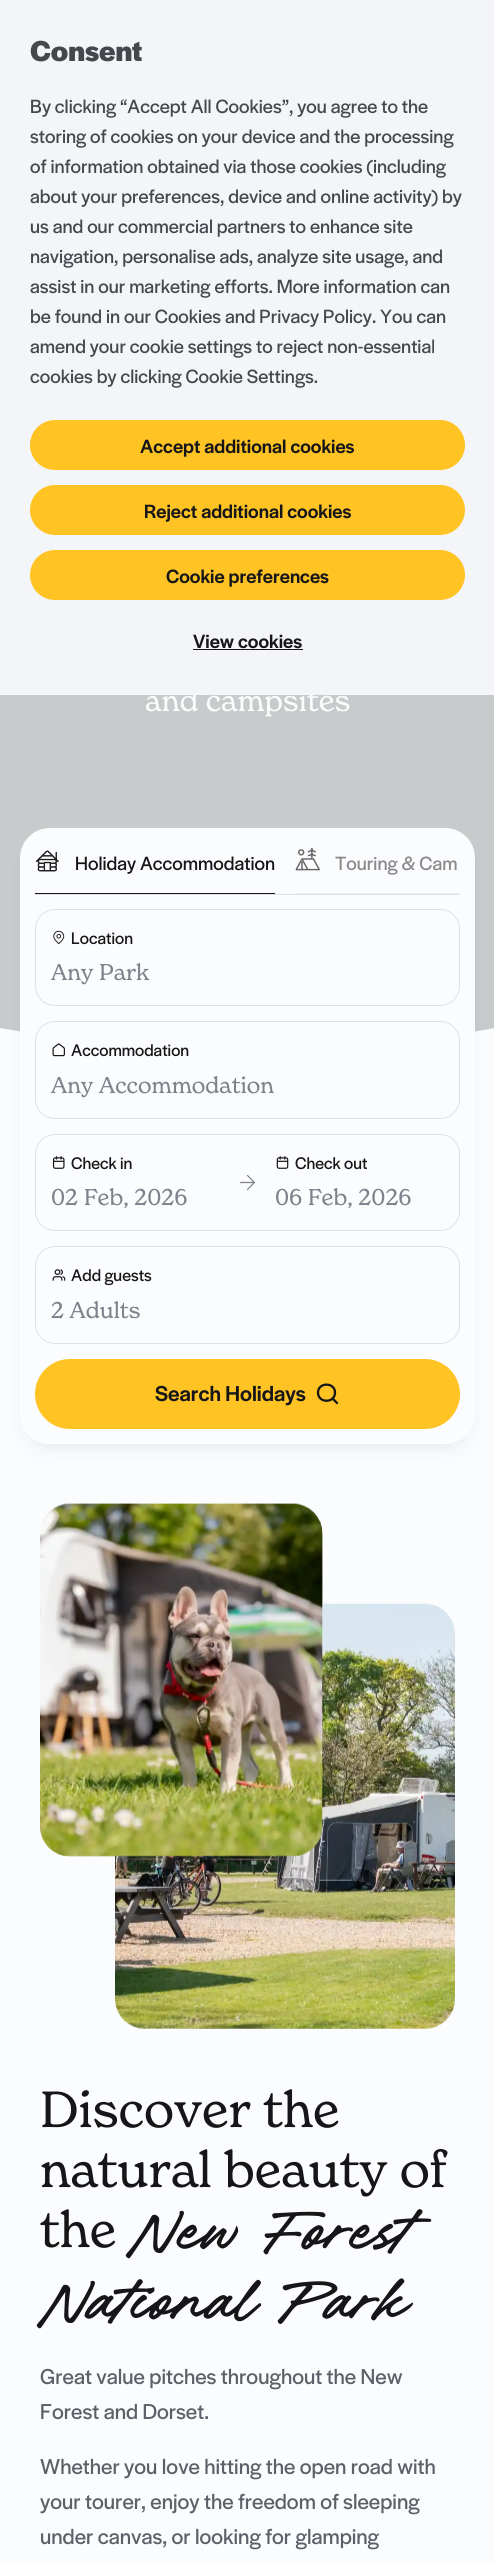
#include <cairo/cairo.h>
#include <math.h>
#include <stddef.h>


static void rounded_rect(cairo_t *cr, double x, double y, double w, double h, double r) {
  cairo_new_sub_path(cr);
  cairo_arc(cr, x + w - r, y + h - r, r, 0, M_PI / 2);
  cairo_arc(cr, x + r, y + h - r, r, M_PI / 2, M_PI);
  cairo_arc(cr, x + r, y + r, r, M_PI, 1.5 * M_PI);
  cairo_arc(cr, x + w - r, y + r, r, 1.5 * M_PI, 2 * M_PI);
  cairo_close_path(cr);
}

static void draw_shadow(cairo_t *cr, double x, double y, double w, double h, double r, double blur, double alpha) {
  cairo_push_group_with_content(cr, CAIRO_CONTENT_ALPHA);
  cairo_set_operator(cr, CAIRO_OPERATOR_SOURCE);
  for (int i = 15; i >= -15 && fmin(w, h) + blur * i / 3 > 0; i -= 2) {
    double e = blur * i / 6;
    cairo_set_source_rgba(cr, 0, 0, 0, alpha * erfc((i - 1) / 8.5) / 2);
    rounded_rect(cr, x - e, y - e, w + 2 * e, h + 2 * e, fmax(0, fmin(r + e + blur * .6, fmin(w, h) / 2 + e)));
    cairo_fill(cr);
  }
  cairo_pattern_t *soft = cairo_pop_group(cr);
  cairo_mask(cr, soft);
  cairo_pattern_destroy(soft);
}

static void draw_image(cairo_t *cr, const char *path, double x, double y, double w, double h) {
  cairo_surface_t *image = cairo_image_surface_create_from_png(path);
  cairo_save(cr);
  cairo_set_source_surface(cr, image, x, y);
  cairo_rectangle(cr, x, y, w, h);
  cairo_fill(cr);
  cairo_restore(cr);
  cairo_surface_destroy(image);
}

static void draw(cairo_t *cr) {
  cairo_set_source_rgb(cr, 251 / 255.0, 252 / 255.0, 253 / 255.0);
  cairo_paint(cr);
  cairo_set_source_rgb(cr, 200 / 255.0, 203 / 255.0, 203 / 255.0);
  cairo_rectangle(cr, 0, 695, 494, 337);
  cairo_fill(cr);
  cairo_set_source_rgb(cr, 251 / 255.0, 252 / 255.0, 253 / 255.0);
  cairo_new_path(cr);
  cairo_move_to(cr, 0, 1028);
  cairo_curve_to(cr, 162, 1057, 333, 1057, 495, 1028);
  cairo_line_to(cr, 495, 1049);
  cairo_line_to(cr, 0, 1049);
  cairo_close_path(cr);
  cairo_fill(cr);
  cairo_set_source_rgb(cr, 24 / 255.0, 39 / 255.0, 75 / 255.0);
  draw_shadow(cr, 25, 845, 445, 606, 25, 10, 0.05);
  draw_shadow(cr, 28, 843, 440, 601, 23, 7, 0.06);
  cairo_set_source_rgb(cr, 251 / 255.0, 252 / 255.0, 253 / 255.0);
  rounded_rect(cr, 20, 828, 455, 616, 30);
  cairo_fill(cr);
  cairo_set_source_rgb(cr, 224 / 255.0, 225 / 255.0, 231 / 255.0);
  cairo_rectangle(cr, 35, 894, 425, 1);
  cairo_fill(cr);
  cairo_set_source_rgb(cr, 22 / 255.0, 22 / 255.0, 24 / 255.0);
  cairo_rectangle(cr, 35, 893, 240, 1);
  cairo_fill(cr);
  draw_image(cr, "images/1.png", 35, 850, 24, 22);
  cairo_set_source_rgb(cr, 238 / 255.0, 239 / 255.0, 242 / 255.0);
  cairo_rectangle(cr, 295, 893, 165, 1);
  cairo_fill(cr);
  draw_image(cr, "images/2.png", 295, 848, 25, 23);
  rounded_rect(cr, 35.5, 909.5, 424, 96, 19.5);
  cairo_set_source_rgb(cr, 224 / 255.0, 225 / 255.0, 231 / 255.0);
  cairo_set_line_width(cr, 1);
  cairo_stroke(cr);
  draw_image(cr, "images/3.png", 53, 930, 12, 15);
  rounded_rect(cr, 35.5, 1021.5, 424, 97, 19.5);
  cairo_stroke(cr);
  draw_image(cr, "images/4.png", 52, 1043, 13, 14);
  rounded_rect(cr, 35.5, 1134.5, 424, 96, 19.5);
  cairo_stroke(cr);
  draw_image(cr, "images/5.png", 52, 1156, 13, 13);
  cairo_new_path(cr);
  cairo_move_to(cr, 240.5, 1182.5);
  cairo_line_to(cr, 254.5, 1182.5);
  cairo_move_to(cr, 254.5, 1182.5);
  cairo_line_to(cr, 247.5, 1175.5);
  cairo_move_to(cr, 254.5, 1182.5);
  cairo_line_to(cr, 247.5, 1189.5);
  cairo_set_source_rgb(cr, 127 / 255.0, 129 / 255.0, 140 / 255.0);
  cairo_set_line_width(cr, 1.2);
  cairo_set_line_cap(cr, CAIRO_LINE_CAP_ROUND);
  cairo_set_line_join(cr, CAIRO_LINE_JOIN_ROUND);
  cairo_stroke(cr);
  draw_image(cr, "images/6.png", 276, 1156, 13, 13);
  rounded_rect(cr, 35.5, 1246.5, 424, 97, 19.5);
  cairo_set_source_rgb(cr, 224 / 255.0, 225 / 255.0, 231 / 255.0);
  cairo_set_line_width(cr, 1);
  cairo_set_line_cap(cr, CAIRO_LINE_CAP_BUTT);
  cairo_set_line_join(cr, CAIRO_LINE_JOIN_MITER);
  cairo_stroke(cr);
  draw_image(cr, "images/7.png", 52, 1269, 14, 12);
  cairo_set_source_rgb(cr, 1, 195 / 255.0, 36 / 255.0);
  rounded_rect(cr, 35, 1359, 425, 70, 35);
  cairo_fill(cr);
  cairo_new_path(cr);
  cairo_move_to(cr, 337, 1403);
  cairo_line_to(cr, 332.5, 1398.5);
  cairo_move_to(cr, 335, 1392.5);
  cairo_curve_to(cr, 335, 1403.5, 318, 1403.5, 318, 1392.5);
  cairo_curve_to(cr, 318, 1382, 335, 1382, 335, 1392.5);
  cairo_close_path(cr);
  cairo_set_source_rgb(cr, 22 / 255.0, 22 / 255.0, 24 / 255.0);
  cairo_set_line_width(cr, 2.3);
  cairo_set_line_cap(cr, CAIRO_LINE_CAP_ROUND);
  cairo_set_line_join(cr, CAIRO_LINE_JOIN_ROUND);
  cairo_stroke(cr);
  draw_image(cr, "images/8.png", 40, 1503, 283, 354);
  draw_image(cr, "images/10.png", 115, 1603, 340, 426);
  draw_image(cr, "images/9.png", 40, 1503, 283, 354);
  cairo_select_font_face(cr, "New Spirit", CAIRO_FONT_SLANT_NORMAL, CAIRO_FONT_WEIGHT_NORMAL);
  cairo_set_font_size(cr, 30);
  cairo_set_source_rgb(cr, 251 / 255.0, 252 / 255.0, 253 / 255.0);
  cairo_move_to(cr, 145, 711);
  cairo_show_text(cr, "and campsites");
  cairo_set_source_rgb(cr, 243 / 255.0, 245 / 255.0, 249 / 255.0);
  cairo_rectangle(cr, 0, 0, 494, 695);
  cairo_fill(cr);
  cairo_select_font_face(cr, "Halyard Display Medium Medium", CAIRO_FONT_SLANT_NORMAL, CAIRO_FONT_WEIGHT_NORMAL);
  cairo_set_font_size(cr, 20);
  cairo_set_source_rgb(cr, 22 / 255.0, 22 / 255.0, 24 / 255.0);
  cairo_move_to(cr, 193, 648);
  cairo_show_text(cr, "View cookies");
  cairo_rectangle(cr, 193, 649, 110, 1);
  cairo_fill(cr);
  cairo_set_source_rgb(cr, 1, 195 / 255.0, 36 / 255.0);
  rounded_rect(cr, 30, 550, 435, 50, 25);
  cairo_fill(cr);
  cairo_set_source_rgb(cr, 22 / 255.0, 22 / 255.0, 24 / 255.0);
  cairo_move_to(cr, 166, 583);
  cairo_show_text(cr, "Cookie preferences");
  cairo_set_source_rgb(cr, 1, 195 / 255.0, 36 / 255.0);
  rounded_rect(cr, 30, 485, 435, 50, 25);
  cairo_fill(cr);
  cairo_set_source_rgb(cr, 22 / 255.0, 22 / 255.0, 24 / 255.0);
  cairo_move_to(cr, 144, 518);
  cairo_show_text(cr, "Reject additional cookies");
  cairo_set_source_rgb(cr, 1, 195 / 255.0, 36 / 255.0);
  rounded_rect(cr, 30, 420, 435, 50, 25);
  cairo_fill(cr);
  cairo_set_source_rgb(cr, 22 / 255.0, 22 / 255.0, 24 / 255.0);
  cairo_move_to(cr, 140, 453);
  cairo_show_text(cr, "Accept additional cookies");
  cairo_select_font_face(cr, "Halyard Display", CAIRO_FONT_SLANT_NORMAL, CAIRO_FONT_WEIGHT_NORMAL);
  cairo_set_source_rgb(cr, 69 / 255.0, 71 / 255.0, 77 / 255.0);
  cairo_move_to(cr, 30, 383);
  cairo_show_text(cr, "cookies by clicking Cookie Settings.");
  cairo_move_to(cr, 30, 353);
  cairo_show_text(cr, "amend your cookie settings to reject non-essential");
  cairo_move_to(cr, 30, 323);
  cairo_show_text(cr, "be found in our Cookies and Privacy Policy. You can");
  cairo_move_to(cr, 30, 293);
  cairo_show_text(cr, "assist in our marketing efforts. More information can");
  cairo_move_to(cr, 30, 263);
  cairo_show_text(cr, "navigation, personalise ads, analyze site usage, and");
  cairo_move_to(cr, 30, 233);
  cairo_show_text(cr, "us and our commercial partners to enhance site");
  cairo_move_to(cr, 30, 203);
  cairo_show_text(cr, "about your preferences, device and online activity) by");
  cairo_move_to(cr, 30, 173);
  cairo_show_text(cr, "of information obtained via those cookies (including");
  cairo_move_to(cr, 30, 143);
  cairo_show_text(cr, "storing of cookies on your device and the processing");
  cairo_move_to(cr, 30, 113);
  cairo_show_text(cr, "By clicking “Accept All Cookies”, you agree to the");
  cairo_select_font_face(cr, "Halyard Display", CAIRO_FONT_SLANT_NORMAL, CAIRO_FONT_WEIGHT_BOLD);
  cairo_set_font_size(cr, 30);
  cairo_move_to(cr, 30, 61);
  cairo_show_text(cr, "Consent");
  cairo_select_font_face(cr, "Halyard Display", CAIRO_FONT_SLANT_NORMAL, CAIRO_FONT_WEIGHT_NORMAL);
  cairo_set_font_size(cr, 20);
  cairo_set_source_rgb(cr, 22 / 255.0, 22 / 255.0, 24 / 255.0);
  cairo_move_to(cr, 75, 870);
  cairo_show_text(cr, "Holiday Accommodation");
  cairo_set_source_rgb(cr, 137 / 255.0, 137 / 255.0, 139 / 255.0);
  cairo_move_to(cr, 335, 870);
  cairo_show_text(cr, "Touring & Cam");
  cairo_set_font_size(cr, 17.5);
  cairo_set_source_rgb(cr, 22 / 255.0, 22 / 255.0, 24 / 255.0);
  cairo_move_to(cr, 71, 944);
  cairo_show_text(cr, "Location");
  cairo_select_font_face(cr, "New Spirit", CAIRO_FONT_SLANT_NORMAL, CAIRO_FONT_WEIGHT_NORMAL);
  cairo_set_font_size(cr, 22.5);
  cairo_set_source_rgb(cr, 127 / 255.0, 129 / 255.0, 140 / 255.0);
  cairo_move_to(cr, 51, 980);
  cairo_show_text(cr, "Any Park");
  cairo_select_font_face(cr, "Halyard Display", CAIRO_FONT_SLANT_NORMAL, CAIRO_FONT_WEIGHT_NORMAL);
  cairo_set_font_size(cr, 17.5);
  cairo_set_source_rgb(cr, 22 / 255.0, 22 / 255.0, 24 / 255.0);
  cairo_move_to(cr, 71, 1056);
  cairo_show_text(cr, "Accommodation");
  cairo_select_font_face(cr, "New Spirit", CAIRO_FONT_SLANT_NORMAL, CAIRO_FONT_WEIGHT_NORMAL);
  cairo_set_font_size(cr, 22.5);
  cairo_set_source_rgb(cr, 127 / 255.0, 129 / 255.0, 140 / 255.0);
  cairo_move_to(cr, 51, 1093);
  cairo_show_text(cr, "Any Accommodation");
  cairo_select_font_face(cr, "Halyard Display", CAIRO_FONT_SLANT_NORMAL, CAIRO_FONT_WEIGHT_NORMAL);
  cairo_set_font_size(cr, 17.5);
  cairo_set_source_rgb(cr, 22 / 255.0, 22 / 255.0, 24 / 255.0);
  cairo_move_to(cr, 71, 1169);
  cairo_show_text(cr, "Check in");
  cairo_select_font_face(cr, "New Spirit", CAIRO_FONT_SLANT_NORMAL, CAIRO_FONT_WEIGHT_NORMAL);
  cairo_set_font_size(cr, 22.5);
  cairo_set_source_rgb(cr, 127 / 255.0, 129 / 255.0, 140 / 255.0);
  cairo_move_to(cr, 51, 1205);
  cairo_show_text(cr, "02 Feb, 2026");
  cairo_select_font_face(cr, "Halyard Display", CAIRO_FONT_SLANT_NORMAL, CAIRO_FONT_WEIGHT_NORMAL);
  cairo_set_font_size(cr, 17.5);
  cairo_set_source_rgb(cr, 22 / 255.0, 22 / 255.0, 24 / 255.0);
  cairo_move_to(cr, 295, 1169);
  cairo_show_text(cr, "Check out");
  cairo_select_font_face(cr, "New Spirit", CAIRO_FONT_SLANT_NORMAL, CAIRO_FONT_WEIGHT_NORMAL);
  cairo_set_font_size(cr, 22.5);
  cairo_set_source_rgb(cr, 127 / 255.0, 129 / 255.0, 140 / 255.0);
  cairo_move_to(cr, 275, 1205);
  cairo_show_text(cr, "06 Feb, 2026");
  cairo_select_font_face(cr, "Halyard Display", CAIRO_FONT_SLANT_NORMAL, CAIRO_FONT_WEIGHT_NORMAL);
  cairo_set_font_size(cr, 17.5);
  cairo_set_source_rgb(cr, 22 / 255.0, 22 / 255.0, 24 / 255.0);
  cairo_move_to(cr, 71, 1281);
  cairo_show_text(cr, "Add guests");
  cairo_select_font_face(cr, "New Spirit", CAIRO_FONT_SLANT_NORMAL, CAIRO_FONT_WEIGHT_NORMAL);
  cairo_set_font_size(cr, 22.5);
  cairo_set_source_rgb(cr, 127 / 255.0, 129 / 255.0, 140 / 255.0);
  cairo_move_to(cr, 51, 1318);
  cairo_show_text(cr, "2 Adults");
  cairo_select_font_face(cr, "Halyard Display Medium Medium", CAIRO_FONT_SLANT_NORMAL, CAIRO_FONT_WEIGHT_NORMAL);
  cairo_set_source_rgb(cr, 22 / 255.0, 22 / 255.0, 24 / 255.0);
  cairo_move_to(cr, 155, 1401);
  cairo_show_text(cr, "Search Holidays");
  cairo_select_font_face(cr, "New Spirit", CAIRO_FONT_SLANT_NORMAL, CAIRO_FONT_WEIGHT_NORMAL);
  cairo_set_font_size(cr, 50);
  cairo_move_to(cr, 40, 2127);
  cairo_show_text(cr, "Discover the");
  cairo_move_to(cr, 40, 2187);
  cairo_show_text(cr, "natural beauty of");
  cairo_move_to(cr, 40, 2247);
  cairo_show_text(cr, "the");
  cairo_select_font_face(cr, "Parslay", CAIRO_FONT_SLANT_NORMAL, CAIRO_FONT_WEIGHT_NORMAL);
  cairo_move_to(cr, 129, 2247);
  cairo_show_text(cr, "New Forest");
  cairo_move_to(cr, 40, 2317);
  cairo_show_text(cr, "National Park");
  cairo_select_font_face(cr, "Halyard Display", CAIRO_FONT_SLANT_NORMAL, CAIRO_FONT_WEIGHT_NORMAL);
  cairo_set_font_size(cr, 22.5);
  cairo_set_source_rgb(cr, 93 / 255.0, 96 / 255.0, 104 / 255.0);
  cairo_move_to(cr, 40, 2384);
  cairo_show_text(cr, "Great value pitches throughout the New");
  cairo_move_to(cr, 40, 2419);
  cairo_show_text(cr, "Forest and Dorset.");
  cairo_move_to(cr, 40, 2474);
  cairo_show_text(cr, "Whether you love hitting the open road with");
  cairo_move_to(cr, 40, 2509);
  cairo_show_text(cr, "your tourer, enjoy the freedom of sleeping");
  cairo_move_to(cr, 40, 2544);
  cairo_show_text(cr, "under canvas, or looking for glamping");
}

int main(void) {
  cairo_surface_t *surface = cairo_image_surface_create(CAIRO_FORMAT_RGB24, 494, 2562);
  cairo_t *cr = cairo_create(surface);
  cairo_font_options_t *options = cairo_font_options_create();
  cairo_font_options_set_hint_metrics(options, CAIRO_HINT_METRICS_OFF);
  cairo_font_options_set_hint_style(options, CAIRO_HINT_STYLE_NONE);
  cairo_set_font_options(cr, options);
  cairo_set_miter_limit(cr, 4);
  draw(cr);
  cairo_surface_write_to_png(surface, "out.png");
  cairo_font_options_destroy(options);
  cairo_destroy(cr);
  cairo_surface_destroy(surface);
  return 0;
}
